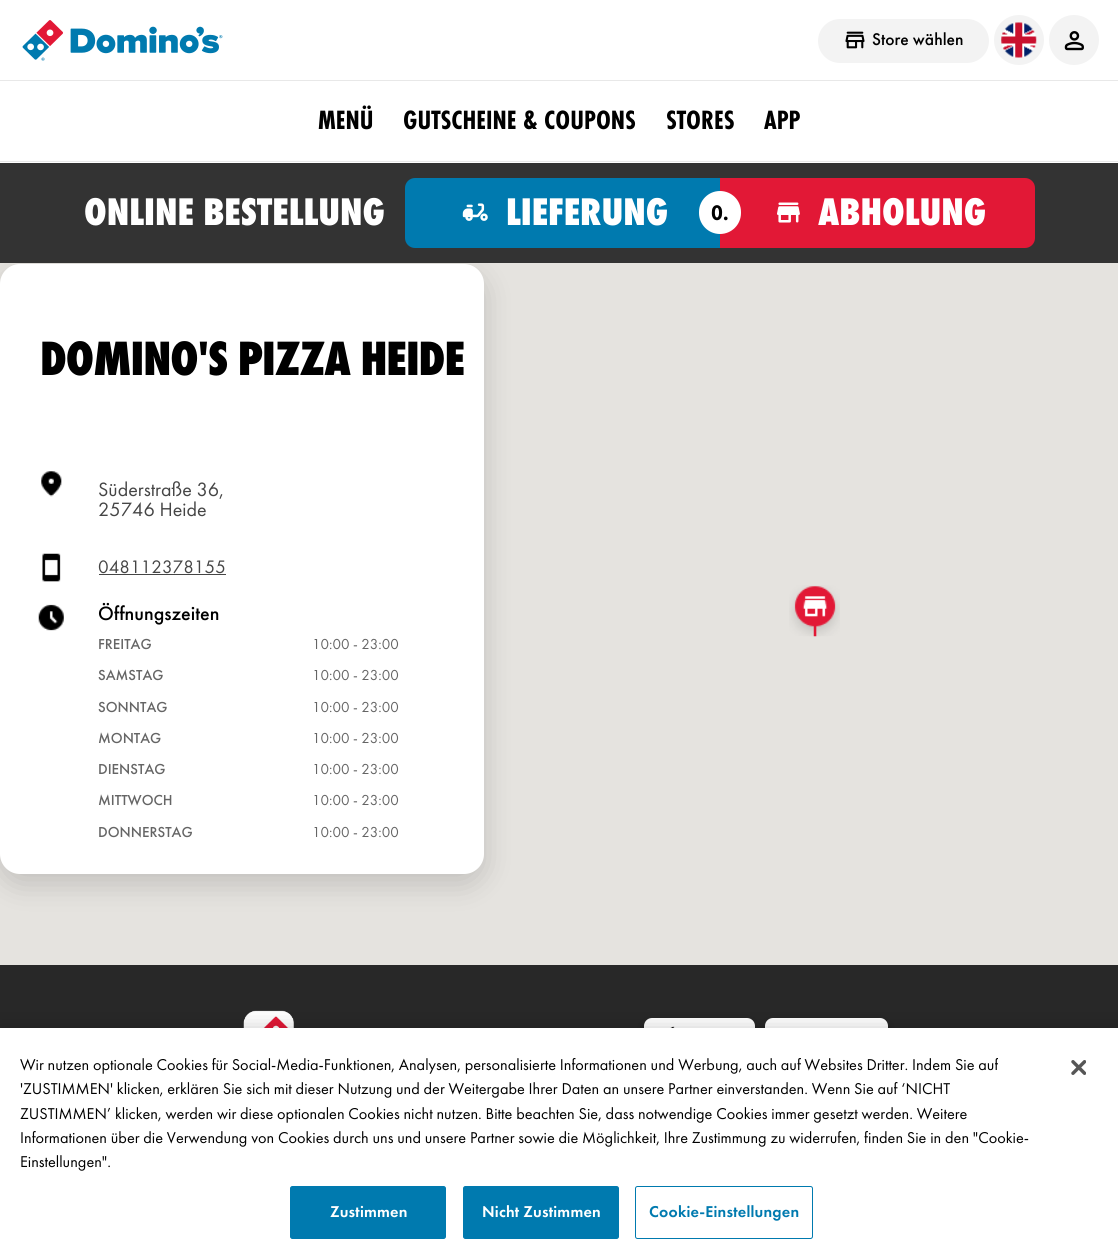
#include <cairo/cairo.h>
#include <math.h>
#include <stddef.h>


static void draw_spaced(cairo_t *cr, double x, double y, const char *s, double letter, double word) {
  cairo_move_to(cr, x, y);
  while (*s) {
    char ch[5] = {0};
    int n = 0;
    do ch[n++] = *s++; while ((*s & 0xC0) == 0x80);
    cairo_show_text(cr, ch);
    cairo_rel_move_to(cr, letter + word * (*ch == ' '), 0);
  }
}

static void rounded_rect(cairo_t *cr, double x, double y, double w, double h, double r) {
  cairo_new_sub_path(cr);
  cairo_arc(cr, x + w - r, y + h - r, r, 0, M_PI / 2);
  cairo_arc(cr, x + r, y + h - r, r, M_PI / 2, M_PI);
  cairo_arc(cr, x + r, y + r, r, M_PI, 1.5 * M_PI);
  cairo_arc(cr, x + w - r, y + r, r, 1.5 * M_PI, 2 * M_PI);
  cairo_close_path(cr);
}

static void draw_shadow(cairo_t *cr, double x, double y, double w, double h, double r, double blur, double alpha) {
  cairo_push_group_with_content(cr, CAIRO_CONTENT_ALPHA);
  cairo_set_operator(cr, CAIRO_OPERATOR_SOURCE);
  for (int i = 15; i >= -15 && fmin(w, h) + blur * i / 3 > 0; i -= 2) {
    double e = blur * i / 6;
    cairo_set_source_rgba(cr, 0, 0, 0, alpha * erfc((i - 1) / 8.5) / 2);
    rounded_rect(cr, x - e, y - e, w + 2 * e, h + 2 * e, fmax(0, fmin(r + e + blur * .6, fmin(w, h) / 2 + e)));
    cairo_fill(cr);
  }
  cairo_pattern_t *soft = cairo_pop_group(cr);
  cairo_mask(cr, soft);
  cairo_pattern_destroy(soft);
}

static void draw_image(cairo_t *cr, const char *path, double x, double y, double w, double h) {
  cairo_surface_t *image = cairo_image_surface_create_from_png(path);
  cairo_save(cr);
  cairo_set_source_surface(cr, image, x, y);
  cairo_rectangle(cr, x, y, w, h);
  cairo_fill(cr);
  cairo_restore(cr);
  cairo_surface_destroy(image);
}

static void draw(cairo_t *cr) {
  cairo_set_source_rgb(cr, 229 / 255.0, 227 / 255.0, 223 / 255.0);
  cairo_paint(cr);
  cairo_set_source_rgb(cr, 1, 1, 1);
  cairo_rectangle(cr, 0, 0, 1118, 163);
  cairo_fill(cr);
  cairo_set_source_rgb(cr, 232 / 255.0, 232 / 255.0, 232 / 255.0);
  cairo_rectangle(cr, 0, 80, 1118, 1);
  cairo_fill(cr);
  draw_image(cr, "images/1.png", 22, 20, 201, 41);
  cairo_set_source_rgb(cr, 243 / 255.0, 243 / 255.0, 243 / 255.0);
  rounded_rect(cr, 818, 19, 171, 44, 22);
  cairo_fill(cr);
  draw_image(cr, "images/2.png", 845, 31, 20, 18);
  cairo_arc(cr, 1019, 40, 25, 0, 2 * M_PI);
  cairo_fill(cr);
  draw_image(cr, "images/3.png", 1001, 22, 36, 36);
  cairo_arc(cr, 1074, 40, 25, 0, 2 * M_PI);
  cairo_fill(cr);
  draw_image(cr, "images/4.png", 1064, 31, 20, 20);
  cairo_set_source_rgb(cr, 232 / 255.0, 232 / 255.0, 232 / 255.0);
  cairo_rectangle(cr, 0, 161, 1118, 1);
  cairo_fill(cr);
  cairo_set_source_rgb(cr, 0, 0, 0);
  draw_shadow(cr, 0, 274, 484, 610, 20, 15, 0.16);
  cairo_set_source_rgb(cr, 51 / 255.0, 51 / 255.0, 51 / 255.0);
  cairo_rectangle(cr, 0, 163, 1118, 100);
  cairo_fill(cr);
  cairo_set_source_rgb(cr, 0, 122 / 255.0, 175 / 255.0);
  cairo_new_path(cr);
  cairo_move_to(cr, 415, 178);
  cairo_line_to(cr, 720, 178);
  cairo_line_to(cr, 720, 248);
  cairo_line_to(cr, 415, 248);
  cairo_curve_to(cr, 409.5, 248, 405, 243.5, 405, 238);
  cairo_line_to(cr, 405, 188);
  cairo_curve_to(cr, 405, 182.5, 409.5, 178, 415, 178);
  cairo_close_path(cr);
  cairo_fill(cr);
  draw_image(cr, "images/5.png", 462, 203, 26, 18);
  cairo_set_source_rgb(cr, 226 / 255.0, 24 / 255.0, 54 / 255.0);
  cairo_new_path(cr);
  cairo_move_to(cr, 720, 178);
  cairo_line_to(cr, 1025, 178);
  cairo_curve_to(cr, 1030.5, 178, 1035, 182.5, 1035, 188);
  cairo_line_to(cr, 1035, 238);
  cairo_curve_to(cr, 1035, 243.5, 1030.5, 248, 1025, 248);
  cairo_line_to(cr, 720, 248);
  cairo_close_path(cr);
  cairo_fill(cr);
  cairo_set_source_rgb(cr, 1, 1, 1);
  rounded_rect(cr, 699, 191, 42, 43, 21);
  cairo_fill(cr);
  draw_image(cr, "images/6.png", 777, 202, 23, 21);
  rounded_rect(cr, 0, 264, 484, 610, 20);
  cairo_fill(cr);
  draw_image(cr, "images/7.png", 41, 471, 21, 26);
  draw_image(cr, "images/8.png", 42, 553, 19, 29);
  cairo_set_source_rgb(cr, 69 / 255.0, 69 / 255.0, 69 / 255.0);
  cairo_rectangle(cr, 99, 574, 127, 1);
  cairo_fill(cr);
  draw_image(cr, "images/9.png", 38, 604, 26, 27);
  draw_image(cr, "images/10.png", 789, 585, 51, 52);
  cairo_set_source_rgb(cr, 40 / 255.0, 40 / 255.0, 40 / 255.0);
  cairo_rectangle(cr, 0, 965, 1118, 63);
  cairo_fill(cr);
  draw_image(cr, "images/11.png", 243, 1010, 51, 18);
  cairo_set_source_rgb(cr, 0, 0, 0);
  draw_shadow(cr, 644, 1023, 111, 45, 8, 7.5, 0.16);
  cairo_set_source_rgb(cr, 1, 1, 1);
  rounded_rect(cr, 644, 1018, 111, 45, 8);
  cairo_fill(cr);
  draw_image(cr, "images/12.png", 670, 1026, 5, 2);
  cairo_set_source_rgb(cr, 0, 0, 0);
  draw_shadow(cr, 765, 1023, 123, 45, 8, 7.5, 0.16);
  cairo_set_source_rgb(cr, 1, 1, 1);
  rounded_rect(cr, 765, 1018, 123, 45, 8);
  cairo_fill(cr);
  cairo_set_source_rgb(cr, 0, 0, 0);
  draw_shadow(cr, 0, 1028, 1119, 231, 0, 11, 0.2);
  cairo_set_source_rgb(cr, 1, 1, 1);
  cairo_rectangle(cr, 0, 1028, 1118, 230);
  cairo_fill(cr);
  cairo_set_source_rgb(cr, 0, 122 / 255.0, 175 / 255.0);
  rounded_rect(cr, 290.5, 1186.5, 155, 52, 2);
  cairo_fill_preserve(cr);
  cairo_set_line_width(cr, 1);
  cairo_stroke(cr);
  rounded_rect(cr, 463.5, 1186.5, 155, 52, 2);
  cairo_fill_preserve(cr);
  cairo_stroke(cr);
  rounded_rect(cr, 635.5, 1186.5, 177, 52, 2);
  cairo_stroke(cr);
  draw_image(cr, "images/13.png", 1071, 1060, 15, 15);
  cairo_select_font_face(cr, "Futura PT Medium", CAIRO_FONT_SLANT_NORMAL, CAIRO_FONT_WEIGHT_NORMAL);
  cairo_set_font_size(cr, 17.5);
  cairo_set_source_rgb(cr, 0, 0, 0);
  cairo_move_to(cr, 872, 45);
  cairo_show_text(cr, "Store wählen");
  cairo_select_font_face(cr, "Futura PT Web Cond", CAIRO_FONT_SLANT_NORMAL, CAIRO_FONT_WEIGHT_BOLD);
  cairo_set_font_size(cr, 27.5);
  cairo_move_to(cr, 318, 129);
  cairo_show_text(cr, "MENÜ");
  cairo_move_to(cr, 403, 129);
  cairo_show_text(cr, "GUTSCHEINE & COUPONS");
  cairo_move_to(cr, 666, 129);
  cairo_show_text(cr, "STORES");
  cairo_move_to(cr, 764, 129);
  cairo_show_text(cr, "APP");
  cairo_select_font_face(cr, "Futura PT Web Cond ExtraBold", CAIRO_FONT_SLANT_NORMAL, CAIRO_FONT_WEIGHT_NORMAL);
  cairo_set_font_size(cr, 40);
  cairo_set_source_rgb(cr, 1, 1, 1);
  cairo_move_to(cr, 84, 225);
  cairo_show_text(cr, "ONLINE BESTELLUNG");
  cairo_move_to(cr, 506, 225);
  cairo_show_text(cr, "LIEFERUNG");
  cairo_select_font_face(cr, "Futura PT Web Cond", CAIRO_FONT_SLANT_NORMAL, CAIRO_FONT_WEIGHT_BOLD);
  cairo_set_font_size(cr, 22);
  cairo_set_source_rgb(cr, 0, 0, 0);
  cairo_move_to(cr, 711, 220);
  cairo_show_text(cr, "O.");
  cairo_select_font_face(cr, "Futura PT Web Cond ExtraBold", CAIRO_FONT_SLANT_NORMAL, CAIRO_FONT_WEIGHT_NORMAL);
  cairo_set_font_size(cr, 40);
  cairo_set_source_rgb(cr, 1, 1, 1);
  cairo_move_to(cr, 818, 225);
  cairo_show_text(cr, "ABHOLUNG");
  cairo_set_font_size(cr, 50);
  cairo_set_source_rgb(cr, 0, 0, 0);
  draw_spaced(cr, 40, 375, "DOMINO'S PIZZA HEIDE", -1, 0);
  cairo_select_font_face(cr, "Futura PT", CAIRO_FONT_SLANT_NORMAL, CAIRO_FONT_WEIGHT_NORMAL);
  cairo_set_font_size(cr, 20);
  cairo_set_source_rgb(cr, 69 / 255.0, 69 / 255.0, 69 / 255.0);
  cairo_move_to(cr, 98, 496);
  cairo_show_text(cr, "Süderstraße 36,");
  cairo_move_to(cr, 98, 516);
  cairo_show_text(cr, "25746 Heide");
  cairo_set_font_size(cr, 18.75);
  cairo_move_to(cr, 98, 573);
  cairo_show_text(cr, "048112378155");
  cairo_select_font_face(cr, "Futura PT Medium", CAIRO_FONT_SLANT_NORMAL, CAIRO_FONT_WEIGHT_NORMAL);
  cairo_set_font_size(cr, 20);
  cairo_set_source_rgb(cr, 0, 0, 0);
  cairo_move_to(cr, 98, 620);
  cairo_show_text(cr, "Öffnungszeiten");
  cairo_set_font_size(cr, 15);
  cairo_set_source_rgb(cr, 101 / 255.0, 101 / 255.0, 101 / 255.0);
  cairo_move_to(cr, 98, 649);
  cairo_show_text(cr, "FREITAG");
  cairo_select_font_face(cr, "Futura PT", CAIRO_FONT_SLANT_NORMAL, CAIRO_FONT_WEIGHT_NORMAL);
  cairo_move_to(cr, 312, 649);
  cairo_show_text(cr, "10:00 - 23:00");
  cairo_select_font_face(cr, "Futura PT Medium", CAIRO_FONT_SLANT_NORMAL, CAIRO_FONT_WEIGHT_NORMAL);
  cairo_move_to(cr, 98, 680);
  cairo_show_text(cr, "SAMSTAG");
  cairo_select_font_face(cr, "Futura PT", CAIRO_FONT_SLANT_NORMAL, CAIRO_FONT_WEIGHT_NORMAL);
  cairo_move_to(cr, 312, 680);
  cairo_show_text(cr, "10:00 - 23:00");
  cairo_select_font_face(cr, "Futura PT Medium", CAIRO_FONT_SLANT_NORMAL, CAIRO_FONT_WEIGHT_NORMAL);
  cairo_move_to(cr, 98, 712);
  cairo_show_text(cr, "SONNTAG");
  cairo_select_font_face(cr, "Futura PT", CAIRO_FONT_SLANT_NORMAL, CAIRO_FONT_WEIGHT_NORMAL);
  cairo_move_to(cr, 312, 712);
  cairo_show_text(cr, "10:00 - 23:00");
  cairo_select_font_face(cr, "Futura PT Medium", CAIRO_FONT_SLANT_NORMAL, CAIRO_FONT_WEIGHT_NORMAL);
  cairo_move_to(cr, 98, 743);
  cairo_show_text(cr, "MONTAG");
  cairo_select_font_face(cr, "Futura PT", CAIRO_FONT_SLANT_NORMAL, CAIRO_FONT_WEIGHT_NORMAL);
  cairo_move_to(cr, 312, 743);
  cairo_show_text(cr, "10:00 - 23:00");
  cairo_select_font_face(cr, "Futura PT Medium", CAIRO_FONT_SLANT_NORMAL, CAIRO_FONT_WEIGHT_NORMAL);
  cairo_move_to(cr, 98, 774);
  cairo_show_text(cr, "DIENSTAG");
  cairo_select_font_face(cr, "Futura PT", CAIRO_FONT_SLANT_NORMAL, CAIRO_FONT_WEIGHT_NORMAL);
  cairo_move_to(cr, 312, 774);
  cairo_show_text(cr, "10:00 - 23:00");
  cairo_select_font_face(cr, "Futura PT Medium", CAIRO_FONT_SLANT_NORMAL, CAIRO_FONT_WEIGHT_NORMAL);
  cairo_move_to(cr, 98, 805);
  cairo_show_text(cr, "MITTWOCH");
  cairo_select_font_face(cr, "Futura PT", CAIRO_FONT_SLANT_NORMAL, CAIRO_FONT_WEIGHT_NORMAL);
  cairo_move_to(cr, 312, 805);
  cairo_show_text(cr, "10:00 - 23:00");
  cairo_select_font_face(cr, "Futura PT Medium", CAIRO_FONT_SLANT_NORMAL, CAIRO_FONT_WEIGHT_NORMAL);
  cairo_move_to(cr, 98, 837);
  cairo_show_text(cr, "DONNERSTAG");
  cairo_select_font_face(cr, "Futura PT", CAIRO_FONT_SLANT_NORMAL, CAIRO_FONT_WEIGHT_NORMAL);
  cairo_move_to(cr, 312, 837);
  cairo_show_text(cr, "10:00 - 23:00");
  cairo_set_font_size(cr, 16.25);
  cairo_set_source_rgb(cr, 0, 0, 0);
  cairo_move_to(cr, 20, 1070);
  cairo_show_text(cr, "Wir nutzen optionale Cookies für Social-Media-Funktionen, Analysen, personalisierte Informationen und Werbung, auch auf Websites Dritter. Indem Sie auf");
  cairo_move_to(cr, 20, 1094);
  cairo_show_text(cr, "'ZUSTIMMEN' klicken, erklären Sie sich mit dieser Nutzung und der Weitergabe Ihrer Daten an unsere Partner einverstanden. Wenn Sie auf ‘NICHT");
  cairo_move_to(cr, 20, 1119);
  cairo_show_text(cr, "ZUSTIMMEN’ klicken, werden wir diese optionalen Cookies nicht nutzen. Bitte beachten Sie, dass notwendige Cookies immer gesetzt werden. Weitere");
  cairo_move_to(cr, 20, 1143);
  cairo_show_text(cr, "Informationen über die Verwendung von Cookies durch uns und unsere Partner sowie die Möglichkeit, Ihre Zustimmung zu widerrufen, finden Sie in den \"Cookie-");
  cairo_move_to(cr, 20, 1167);
  cairo_show_text(cr, "Einstellungen\".");
  cairo_select_font_face(cr, "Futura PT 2 Medium", CAIRO_FONT_SLANT_NORMAL, CAIRO_FONT_WEIGHT_NORMAL);
  cairo_set_source_rgb(cr, 1, 1, 1);
  draw_spaced(cr, 330, 1217, "Zustimmen", 0.2, 0);
  draw_spaced(cr, 482, 1217, "Nicht Zustimmen", 0.2, 0);
  cairo_set_source_rgb(cr, 0, 122 / 255.0, 175 / 255.0);
  draw_spaced(cr, 649, 1217, "Cookie-Einstellungen", 0.2, 0);
}

int main(void) {
  cairo_surface_t *surface = cairo_image_surface_create(CAIRO_FORMAT_RGB24, 1118, 1258);
  cairo_t *cr = cairo_create(surface);
  cairo_font_options_t *options = cairo_font_options_create();
  cairo_font_options_set_hint_metrics(options, CAIRO_HINT_METRICS_OFF);
  cairo_font_options_set_hint_style(options, CAIRO_HINT_STYLE_NONE);
  cairo_set_font_options(cr, options);
  cairo_set_miter_limit(cr, 4);
  draw(cr);
  cairo_surface_write_to_png(surface, "out.png");
  cairo_font_options_destroy(options);
  cairo_destroy(cr);
  cairo_surface_destroy(surface);
  return 0;
}
